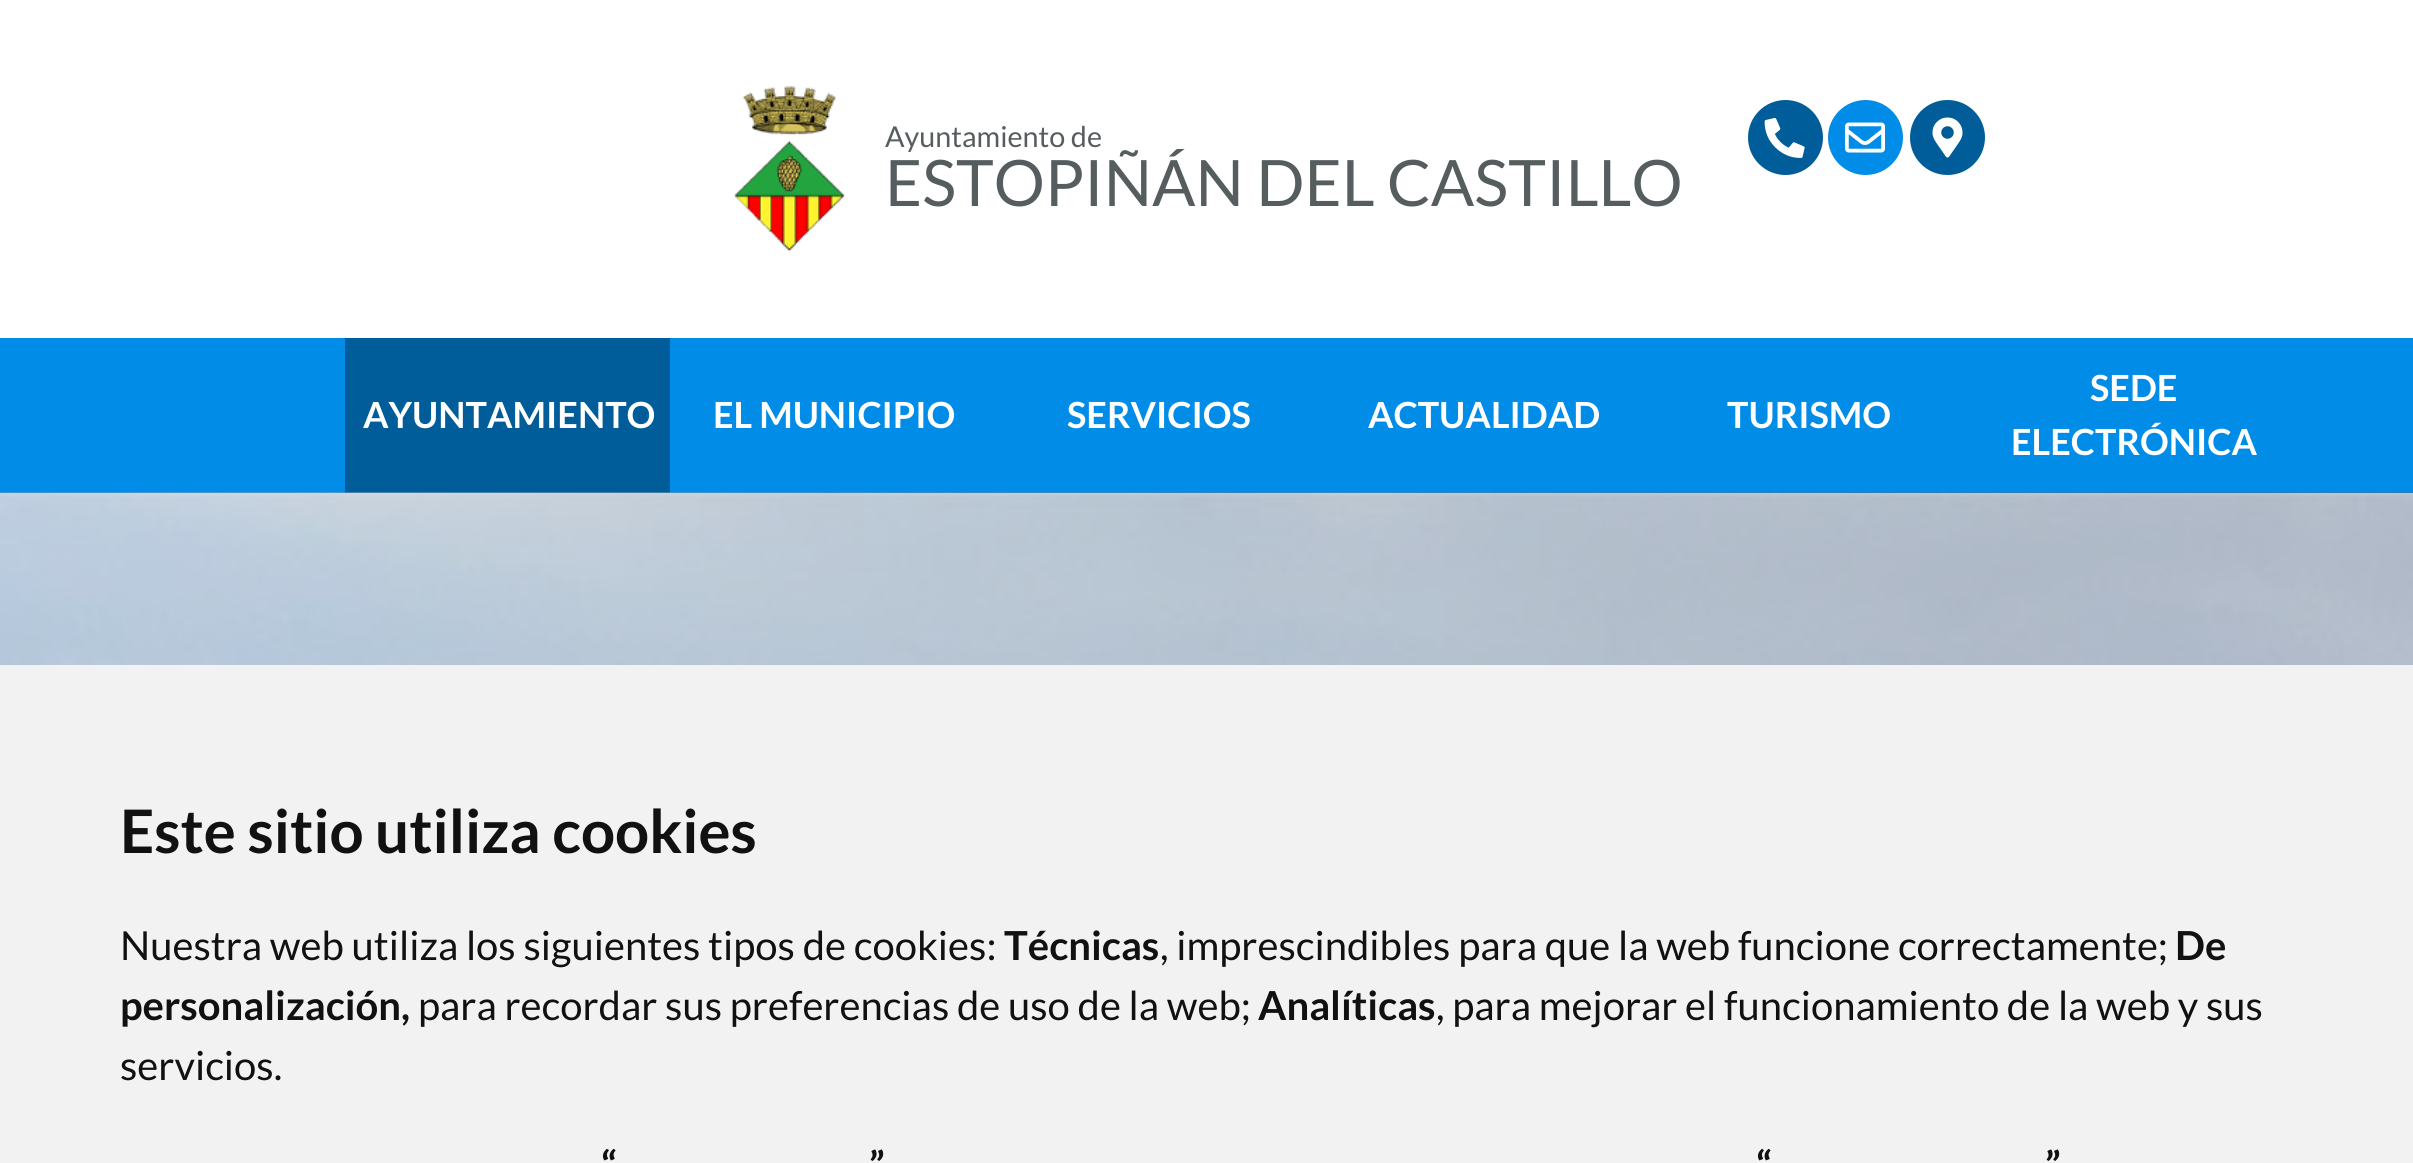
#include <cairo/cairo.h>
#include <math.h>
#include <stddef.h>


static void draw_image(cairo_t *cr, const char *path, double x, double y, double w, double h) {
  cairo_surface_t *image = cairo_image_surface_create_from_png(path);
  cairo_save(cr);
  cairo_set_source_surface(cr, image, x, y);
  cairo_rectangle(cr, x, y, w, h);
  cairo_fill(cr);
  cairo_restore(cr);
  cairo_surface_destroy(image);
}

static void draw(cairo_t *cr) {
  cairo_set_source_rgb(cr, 1, 1, 1);
  cairo_paint(cr);
  draw_image(cr, "images/1.png", 734, 85, 111, 167);
  cairo_set_source_rgb(cr, 0, 93 / 255.0, 154 / 255.0);
  cairo_arc(cr, 1785.5, 137.5, 37.5, 0, 2 * M_PI);
  cairo_fill(cr);
  draw_image(cr, "images/2.png", 1764, 118, 41, 40);
  cairo_set_source_rgb(cr, 1 / 255.0, 140 / 255.0, 231 / 255.0);
  cairo_arc(cr, 1865.5, 137.5, 37.5, 0, 2 * M_PI);
  cairo_fill(cr);
  draw_image(cr, "images/3.png", 1845, 122, 40, 31);
  cairo_set_source_rgb(cr, 0, 93 / 255.0, 154 / 255.0);
  cairo_arc(cr, 1947.5, 137.5, 37.5, 0, 2 * M_PI);
  cairo_fill(cr);
  draw_image(cr, "images/4.png", 1932, 117, 31, 41);
  cairo_set_source_rgb(cr, 1 / 255.0, 140 / 255.0, 231 / 255.0);
  cairo_rectangle(cr, 0, 338, 2413, 155);
  cairo_fill(cr);
  cairo_set_source_rgb(cr, 0, 93 / 255.0, 154 / 255.0);
  cairo_rectangle(cr, 345, 338, 325, 155);
  cairo_fill(cr);
  draw_image(cr, "images/5.png", 0, 492, 2413, 173);
  cairo_set_source_rgb(cr, 242 / 255.0, 242 / 255.0, 242 / 255.0);
  cairo_rectangle(cr, 0, 665, 2413, 498);
  cairo_fill(cr);
  cairo_select_font_face(cr, "Lato", CAIRO_FONT_SLANT_NORMAL, CAIRO_FONT_WEIGHT_NORMAL);
  cairo_set_font_size(cr, 28.75);
  cairo_set_source_rgb(cr, 86 / 255.0, 93 / 255.0, 94 / 255.0);
  cairo_move_to(cr, 885, 147);
  cairo_show_text(cr, "Ayuntamiento de");
  cairo_set_font_size(cr, 64);
  cairo_move_to(cr, 885, 206);
  cairo_show_text(cr, "ESTOPIÑÁN DEL CASTILLO");
  cairo_select_font_face(cr, "Lato", CAIRO_FONT_SLANT_NORMAL, CAIRO_FONT_WEIGHT_BOLD);
  cairo_set_font_size(cr, 36);
  cairo_set_source_rgb(cr, 1, 1, 1);
  cairo_move_to(cr, 363, 428);
  cairo_show_text(cr, "AYUNTAMIENTO");
  cairo_move_to(cr, 713, 428);
  cairo_show_text(cr, "EL MUNICIPIO");
  cairo_move_to(cr, 1067, 428);
  cairo_show_text(cr, "SERVICIOS");
  cairo_move_to(cr, 1368, 428);
  cairo_show_text(cr, "ACTUALIDAD");
  cairo_move_to(cr, 1727, 428);
  cairo_show_text(cr, "TURISMO");
  cairo_move_to(cr, 2090, 401);
  cairo_show_text(cr, "SEDE");
  cairo_move_to(cr, 2011, 455);
  cairo_show_text(cr, "ELECTRÓNICA");
  cairo_set_font_size(cr, 60);
  cairo_set_source_rgb(cr, 17 / 255.0, 17 / 255.0, 17 / 255.0);
  cairo_move_to(cr, 120, 853);
  cairo_show_text(cr, "Este sitio utiliza cookies");
  cairo_select_font_face(cr, "Lato", CAIRO_FONT_SLANT_NORMAL, CAIRO_FONT_WEIGHT_NORMAL);
  cairo_set_font_size(cr, 40);
  cairo_move_to(cr, 120, 960);
  cairo_show_text(cr, "Nuestra web utiliza los siguientes tipos de cookies:");
  cairo_select_font_face(cr, "Lato", CAIRO_FONT_SLANT_NORMAL, CAIRO_FONT_WEIGHT_BOLD);
  cairo_move_to(cr, 1004, 960);
  cairo_show_text(cr, "Técnicas");
  cairo_select_font_face(cr, "Lato", CAIRO_FONT_SLANT_NORMAL, CAIRO_FONT_WEIGHT_NORMAL);
  cairo_move_to(cr, 1160, 960);
  cairo_show_text(cr, ", imprescindibles para que la web funcione correctamente;");
  cairo_select_font_face(cr, "Lato", CAIRO_FONT_SLANT_NORMAL, CAIRO_FONT_WEIGHT_BOLD);
  cairo_move_to(cr, 2175, 960);
  cairo_show_text(cr, "De");
  cairo_move_to(cr, 120, 1020);
  cairo_show_text(cr, "personalización,");
  cairo_select_font_face(cr, "Lato", CAIRO_FONT_SLANT_NORMAL, CAIRO_FONT_WEIGHT_NORMAL);
  cairo_move_to(cr, 418, 1020);
  cairo_show_text(cr, "para recordar sus preferencias de uso de la web;");
  cairo_select_font_face(cr, "Lato", CAIRO_FONT_SLANT_NORMAL, CAIRO_FONT_WEIGHT_BOLD);
  cairo_move_to(cr, 1258, 1020);
  cairo_show_text(cr, "Analíticas");
  cairo_select_font_face(cr, "Lato", CAIRO_FONT_SLANT_NORMAL, CAIRO_FONT_WEIGHT_NORMAL);
  cairo_move_to(cr, 1436, 1020);
  cairo_show_text(cr, ", para mejorar el funcionamiento de la web y sus");
  cairo_move_to(cr, 120, 1080);
  cairo_show_text(cr, "servicios.");
  cairo_select_font_face(cr, "Lato", CAIRO_FONT_SLANT_NORMAL, CAIRO_FONT_WEIGHT_BOLD);
  cairo_move_to(cr, 601, 1180);
  cairo_show_text(cr, "“");
  cairo_move_to(cr, 869, 1180);
  cairo_show_text(cr, "”");
  cairo_move_to(cr, 1756, 1180);
  cairo_show_text(cr, "“");
  cairo_move_to(cr, 2045, 1180);
  cairo_show_text(cr, "”");
}

int main(void) {
  cairo_surface_t *surface = cairo_image_surface_create(CAIRO_FORMAT_RGB24, 2413, 1163);
  cairo_t *cr = cairo_create(surface);
  cairo_font_options_t *options = cairo_font_options_create();
  cairo_font_options_set_hint_metrics(options, CAIRO_HINT_METRICS_OFF);
  cairo_font_options_set_hint_style(options, CAIRO_HINT_STYLE_NONE);
  cairo_set_font_options(cr, options);
  cairo_set_miter_limit(cr, 4);
  draw(cr);
  cairo_surface_write_to_png(surface, "out.png");
  cairo_font_options_destroy(options);
  cairo_destroy(cr);
  cairo_surface_destroy(surface);
  return 0;
}
